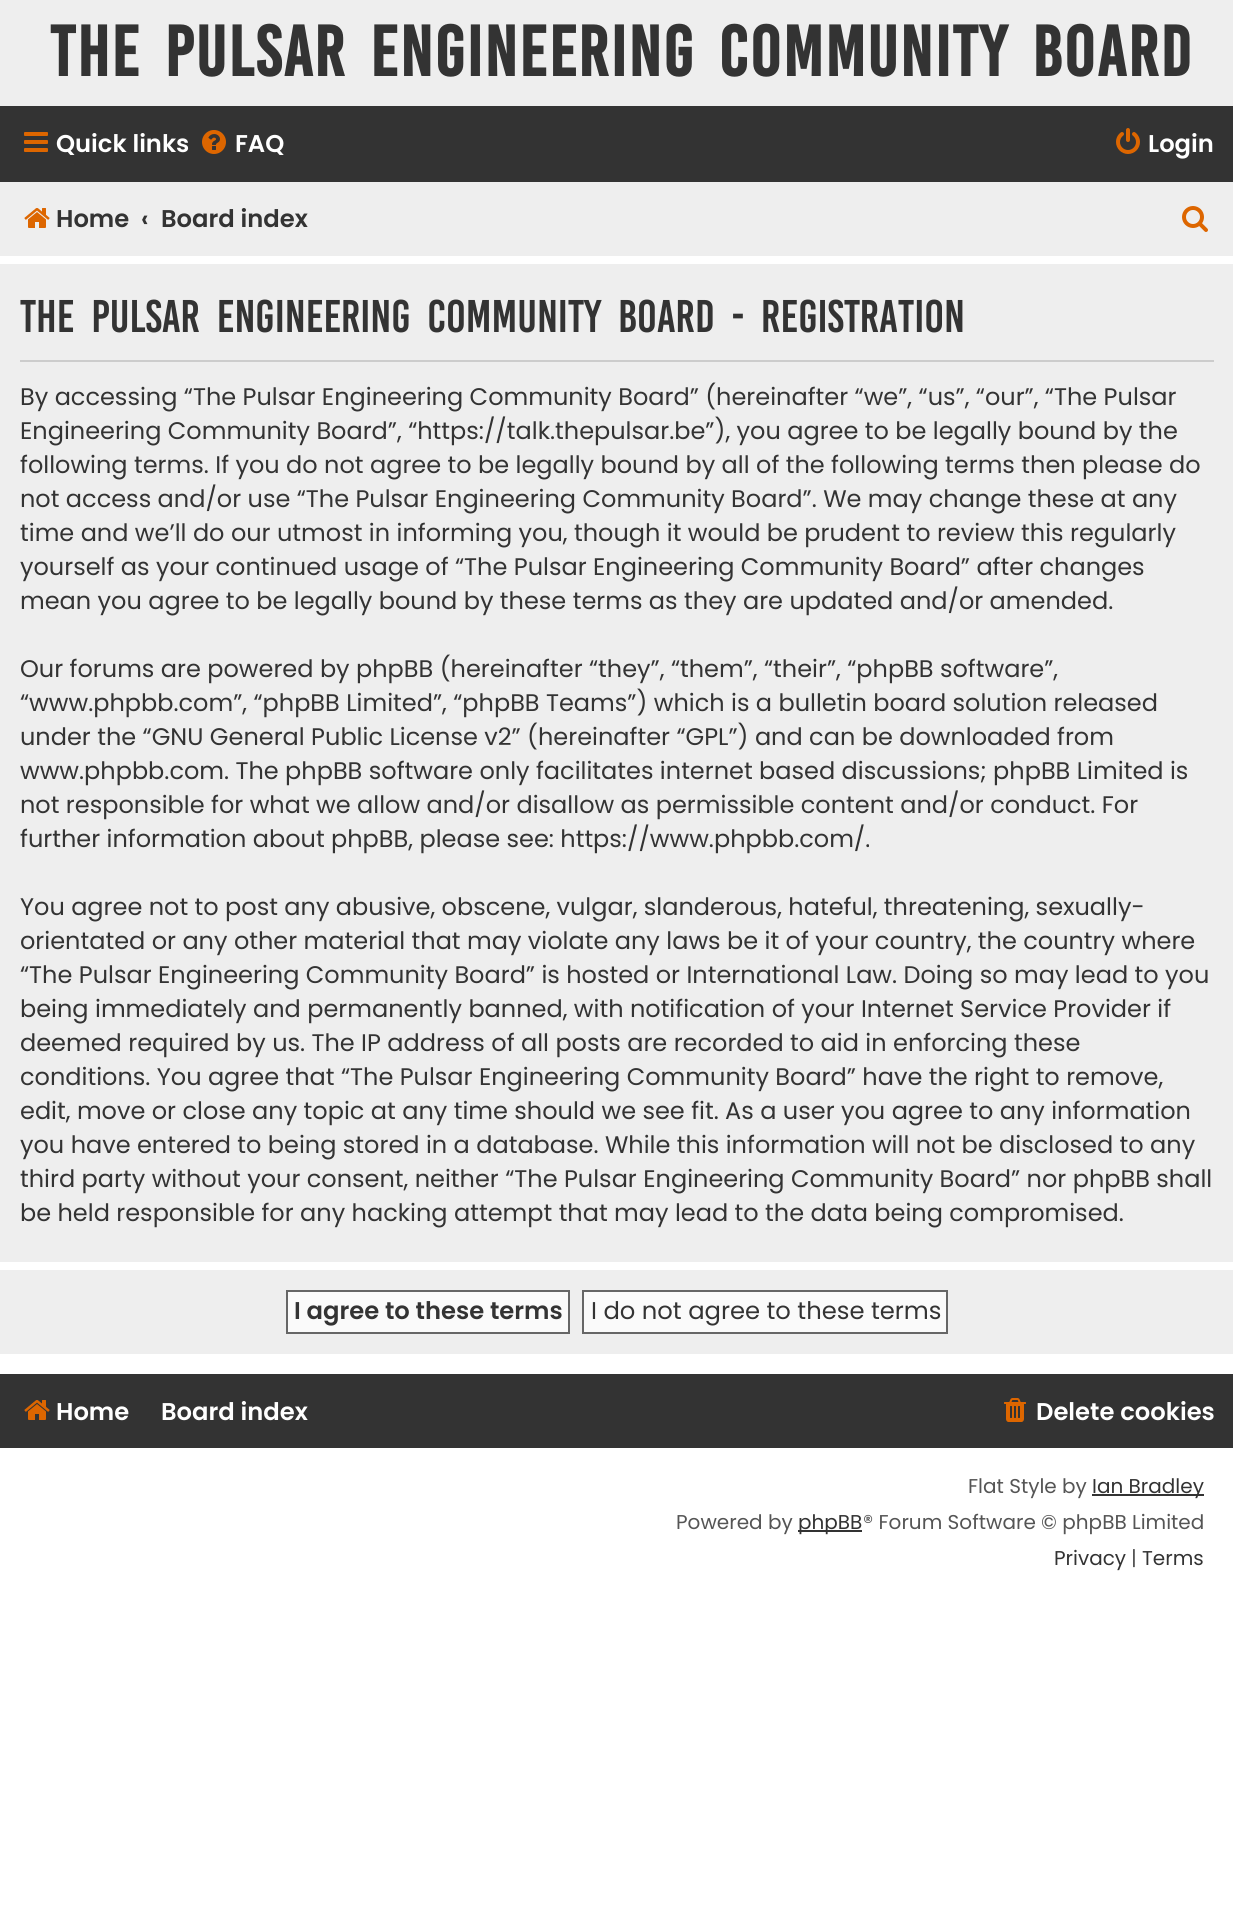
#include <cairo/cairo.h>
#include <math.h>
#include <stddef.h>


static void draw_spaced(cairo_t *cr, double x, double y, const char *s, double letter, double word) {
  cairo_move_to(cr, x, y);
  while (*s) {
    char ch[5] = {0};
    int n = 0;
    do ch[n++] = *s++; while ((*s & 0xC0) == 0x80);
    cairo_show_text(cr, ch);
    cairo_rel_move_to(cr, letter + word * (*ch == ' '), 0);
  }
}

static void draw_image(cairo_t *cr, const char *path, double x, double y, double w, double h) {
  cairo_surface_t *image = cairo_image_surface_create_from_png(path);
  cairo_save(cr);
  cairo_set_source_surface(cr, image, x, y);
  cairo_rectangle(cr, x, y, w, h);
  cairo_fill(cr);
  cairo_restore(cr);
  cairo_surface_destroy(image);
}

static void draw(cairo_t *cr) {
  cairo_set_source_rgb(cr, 1, 1, 1);
  cairo_paint(cr);
  cairo_set_source_rgb(cr, 238 / 255.0, 238 / 255.0, 238 / 255.0);
  cairo_rectangle(cr, 0, 0, 1233, 106);
  cairo_fill(cr);
  cairo_set_source_rgb(cr, 51 / 255.0, 51 / 255.0, 51 / 255.0);
  cairo_rectangle(cr, 0, 106, 1233, 76);
  cairo_fill(cr);
  draw_image(cr, "images/1.png", 24, 132, 24, 20);
  draw_image(cr, "images/2.png", 202, 130, 24, 24);
  draw_image(cr, "images/3.png", 1116, 128, 24, 26);
  cairo_set_source_rgb(cr, 238 / 255.0, 238 / 255.0, 238 / 255.0);
  cairo_rectangle(cr, 0, 182, 1233, 74);
  cairo_fill(cr);
  draw_image(cr, "images/4.png", 24, 208, 26, 20);
  draw_image(cr, "images/5.png", 1182, 206, 26, 26);
  cairo_rectangle(cr, 0, 264, 1233, 998);
  cairo_fill(cr);
  cairo_set_source_rgb(cr, 204 / 255.0, 204 / 255.0, 204 / 255.0);
  cairo_rectangle(cr, 20, 360, 1194, 2);
  cairo_fill(cr);
  cairo_set_source_rgb(cr, 238 / 255.0, 238 / 255.0, 238 / 255.0);
  cairo_rectangle(cr, 0, 1270, 1233, 84);
  cairo_fill(cr);
  cairo_set_source_rgb(cr, 250 / 255.0, 250 / 255.0, 250 / 255.0);
  cairo_rectangle(cr, 287, 1291, 282, 42);
  cairo_fill_preserve(cr);
  cairo_set_source_rgb(cr, 102 / 255.0, 102 / 255.0, 102 / 255.0);
  cairo_stroke(cr);
  cairo_set_source_rgb(cr, 250 / 255.0, 250 / 255.0, 250 / 255.0);
  cairo_rectangle(cr, 583, 1291, 364, 42);
  cairo_fill_preserve(cr);
  cairo_set_source_rgb(cr, 102 / 255.0, 102 / 255.0, 102 / 255.0);
  cairo_stroke(cr);
  cairo_set_source_rgb(cr, 51 / 255.0, 51 / 255.0, 51 / 255.0);
  cairo_rectangle(cr, 0, 1374, 1233, 74);
  cairo_fill(cr);
  draw_image(cr, "images/6.png", 24, 1400, 26, 20);
  draw_image(cr, "images/7.png", 1004, 1398, 22, 24);
  cairo_rectangle(cr, 1092, 1494, 112, 2);
  cairo_fill(cr);
  cairo_rectangle(cr, 798, 1530, 64, 2);
  cairo_fill(cr);
  cairo_select_font_face(cr, "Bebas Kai", CAIRO_FONT_SLANT_NORMAL, CAIRO_FONT_WEIGHT_BOLD);
  cairo_set_font_size(cr, 55);
  draw_spaced(cr, 50, 76, "The Pulsar Engineering Community Board", 2, 8);
  cairo_select_font_face(cr, "Poppins SemiBold", CAIRO_FONT_SLANT_NORMAL, CAIRO_FONT_WEIGHT_NORMAL);
  cairo_set_font_size(cr, 24.25);
  cairo_set_source_rgb(cr, 1, 1, 1);
  cairo_move_to(cr, 56, 152);
  cairo_show_text(cr, "Quick links");
  cairo_move_to(cr, 235, 152);
  cairo_show_text(cr, "FAQ");
  cairo_move_to(cr, 1148, 152);
  cairo_show_text(cr, "Login");
  cairo_set_source_rgb(cr, 51 / 255.0, 51 / 255.0, 51 / 255.0);
  cairo_move_to(cr, 56, 227);
  cairo_show_text(cr, "Home");
  cairo_move_to(cr, 141, 227);
  cairo_show_text(cr, "‹");
  cairo_move_to(cr, 161, 227);
  cairo_show_text(cr, "Board index");
  cairo_select_font_face(cr, "Bebas Kai", CAIRO_FONT_SLANT_NORMAL, CAIRO_FONT_WEIGHT_NORMAL);
  cairo_set_font_size(cr, 35.2);
  draw_spaced(cr, 20, 332, "The Pulsar Engineering Community Board - Registration", 0, 8);
  cairo_select_font_face(cr, "Poppins", CAIRO_FONT_SLANT_NORMAL, CAIRO_FONT_WEIGHT_NORMAL);
  cairo_set_font_size(cr, 24);
  cairo_move_to(cr, 20, 405);
  cairo_show_text(cr, "By accessing “The Pulsar Engineering Community Board” (hereinafter “we”, “us”, “our”, “The Pulsar");
  cairo_move_to(cr, 20, 439);
  cairo_show_text(cr, "Engineering Community Board”, “https://talk.thepulsar.be”), you agree to be legally bound by the");
  cairo_move_to(cr, 20, 473);
  cairo_show_text(cr, "following terms. If you do not agree to be legally bound by all of the following terms then please do");
  cairo_move_to(cr, 20, 507);
  cairo_show_text(cr, "not access and/or use “The Pulsar Engineering Community Board”. We may change these at any");
  cairo_move_to(cr, 20, 541);
  cairo_show_text(cr, "time and we’ll do our utmost in informing you, though it would be prudent to review this regularly");
  cairo_move_to(cr, 20, 575);
  cairo_show_text(cr, "yourself as your continued usage of “The Pulsar Engineering Community Board” after changes");
  cairo_move_to(cr, 20, 609);
  cairo_show_text(cr, "mean you agree to be legally bound by these terms as they are updated and/or amended.");
  cairo_move_to(cr, 20, 677);
  cairo_show_text(cr, "Our forums are powered by phpBB (hereinafter “they”, “them”, “their”, “phpBB software”,");
  cairo_move_to(cr, 20, 711);
  cairo_show_text(cr, "“www.phpbb.com”, “phpBB Limited”, “phpBB Teams”) which is a bulletin board solution released");
  cairo_move_to(cr, 20, 745);
  cairo_show_text(cr, "under the “GNU General Public License v2” (hereinafter “GPL”) and can be downloaded from");
  cairo_move_to(cr, 20, 779);
  cairo_show_text(cr, "www.phpbb.com. The phpBB software only facilitates internet based discussions; phpBB Limited is");
  cairo_move_to(cr, 20, 813);
  cairo_show_text(cr, "not responsible for what we allow and/or disallow as permissible content and/or conduct. For");
  cairo_move_to(cr, 20, 847);
  cairo_show_text(cr, "further information about phpBB, please see: https://www.phpbb.com/.");
  cairo_move_to(cr, 20, 915);
  cairo_show_text(cr, "You agree not to post any abusive, obscene, vulgar, slanderous, hateful, threatening, sexually-");
  cairo_move_to(cr, 20, 949);
  cairo_show_text(cr, "orientated or any other material that may violate any laws be it of your country, the country where");
  cairo_move_to(cr, 20, 983);
  cairo_show_text(cr, "“The Pulsar Engineering Community Board” is hosted or International Law. Doing so may lead to you");
  cairo_move_to(cr, 20, 1017);
  cairo_show_text(cr, "being immediately and permanently banned, with notification of your Internet Service Provider if");
  cairo_move_to(cr, 20, 1051);
  cairo_show_text(cr, "deemed required by us. The IP address of all posts are recorded to aid in enforcing these");
  cairo_move_to(cr, 20, 1085);
  cairo_show_text(cr, "conditions. You agree that “The Pulsar Engineering Community Board” have the right to remove,");
  cairo_move_to(cr, 20, 1119);
  cairo_show_text(cr, "edit, move or close any topic at any time should we see fit. As a user you agree to any information");
  cairo_move_to(cr, 20, 1153);
  cairo_show_text(cr, "you have entered to being stored in a database. While this information will not be disclosed to any");
  cairo_move_to(cr, 20, 1187);
  cairo_show_text(cr, "third party without your consent, neither “The Pulsar Engineering Community Board” nor phpBB shall");
  cairo_move_to(cr, 20, 1221);
  cairo_show_text(cr, "be held responsible for any hacking attempt that may lead to the data being compromised.");
  cairo_select_font_face(cr, "Poppins SemiBold", CAIRO_FONT_SLANT_NORMAL, CAIRO_FONT_WEIGHT_NORMAL);
  cairo_set_font_size(cr, 24.25);
  cairo_move_to(cr, 294, 1319);
  cairo_show_text(cr, "I agree to these terms");
  cairo_select_font_face(cr, "Poppins", CAIRO_FONT_SLANT_NORMAL, CAIRO_FONT_WEIGHT_NORMAL);
  cairo_move_to(cr, 591, 1319);
  cairo_show_text(cr, "I do not agree to these terms");
  cairo_select_font_face(cr, "Poppins SemiBold", CAIRO_FONT_SLANT_NORMAL, CAIRO_FONT_WEIGHT_NORMAL);
  cairo_set_source_rgb(cr, 1, 1, 1);
  cairo_move_to(cr, 56, 1420);
  cairo_show_text(cr, "Home");
  cairo_move_to(cr, 161, 1420);
  cairo_show_text(cr, "Board index");
  cairo_move_to(cr, 1036, 1420);
  cairo_show_text(cr, "Delete cookies");
  cairo_select_font_face(cr, "Poppins", CAIRO_FONT_SLANT_NORMAL, CAIRO_FONT_WEIGHT_NORMAL);
  cairo_set_font_size(cr, 20);
  cairo_set_source_rgb(cr, 85 / 255.0, 85 / 255.0, 85 / 255.0);
  cairo_move_to(cr, 968, 1493);
  cairo_show_text(cr, "Flat Style by");
  cairo_set_source_rgb(cr, 51 / 255.0, 51 / 255.0, 51 / 255.0);
  cairo_move_to(cr, 1092, 1493);
  cairo_show_text(cr, "Ian Bradley");
  cairo_set_source_rgb(cr, 85 / 255.0, 85 / 255.0, 85 / 255.0);
  cairo_move_to(cr, 676, 1529);
  cairo_show_text(cr, "Powered by");
  cairo_set_source_rgb(cr, 51 / 255.0, 51 / 255.0, 51 / 255.0);
  cairo_move_to(cr, 798, 1529);
  cairo_show_text(cr, "phpBB");
  cairo_set_source_rgb(cr, 85 / 255.0, 85 / 255.0, 85 / 255.0);
  cairo_move_to(cr, 863, 1529);
  cairo_show_text(cr, "® Forum Software © phpBB Limited");
  cairo_set_source_rgb(cr, 51 / 255.0, 51 / 255.0, 51 / 255.0);
  cairo_move_to(cr, 1054, 1565);
  cairo_show_text(cr, "Privacy");
  cairo_set_source_rgb(cr, 85 / 255.0, 85 / 255.0, 85 / 255.0);
  cairo_move_to(cr, 1131, 1565);
  cairo_show_text(cr, "|");
  cairo_set_source_rgb(cr, 51 / 255.0, 51 / 255.0, 51 / 255.0);
  cairo_move_to(cr, 1142, 1565);
  cairo_show_text(cr, "Terms");
}

int main(void) {
  cairo_surface_t *surface = cairo_image_surface_create(CAIRO_FORMAT_RGB24, 1233, 1928);
  cairo_t *cr = cairo_create(surface);
  cairo_font_options_t *options = cairo_font_options_create();
  cairo_font_options_set_hint_metrics(options, CAIRO_HINT_METRICS_OFF);
  cairo_font_options_set_hint_style(options, CAIRO_HINT_STYLE_NONE);
  cairo_set_font_options(cr, options);
  cairo_set_miter_limit(cr, 4);
  draw(cr);
  cairo_surface_write_to_png(surface, "out.png");
  cairo_font_options_destroy(options);
  cairo_destroy(cr);
  cairo_surface_destroy(surface);
  return 0;
}
